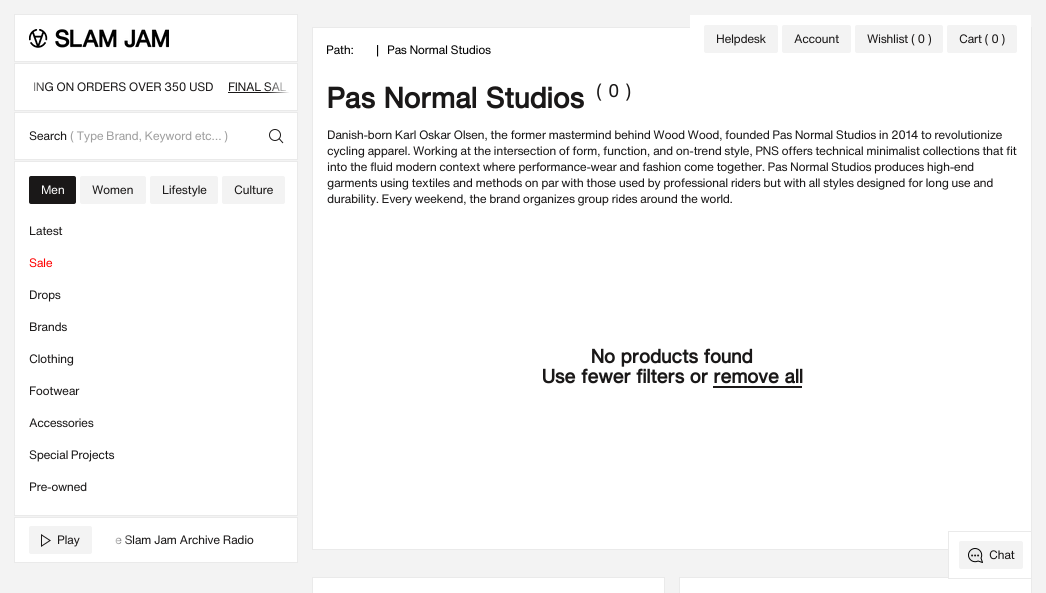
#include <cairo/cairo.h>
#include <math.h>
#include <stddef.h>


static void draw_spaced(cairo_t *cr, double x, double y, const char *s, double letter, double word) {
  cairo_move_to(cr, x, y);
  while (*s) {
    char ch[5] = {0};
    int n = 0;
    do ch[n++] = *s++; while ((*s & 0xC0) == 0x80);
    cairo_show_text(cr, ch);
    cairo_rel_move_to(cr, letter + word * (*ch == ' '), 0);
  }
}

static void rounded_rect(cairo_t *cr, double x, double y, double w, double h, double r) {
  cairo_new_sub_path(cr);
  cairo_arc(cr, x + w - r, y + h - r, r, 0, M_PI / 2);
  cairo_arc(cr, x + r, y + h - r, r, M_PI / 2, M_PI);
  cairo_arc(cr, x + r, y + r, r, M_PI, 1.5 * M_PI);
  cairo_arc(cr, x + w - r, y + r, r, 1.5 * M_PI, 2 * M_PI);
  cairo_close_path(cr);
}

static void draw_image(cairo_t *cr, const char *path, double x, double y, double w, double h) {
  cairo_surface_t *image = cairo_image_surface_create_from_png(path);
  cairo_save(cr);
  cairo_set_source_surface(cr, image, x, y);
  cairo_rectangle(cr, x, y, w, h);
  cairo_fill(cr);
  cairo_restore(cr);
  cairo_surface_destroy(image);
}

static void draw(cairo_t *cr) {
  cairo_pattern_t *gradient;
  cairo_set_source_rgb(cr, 243 / 255.0, 243 / 255.0, 243 / 255.0);
  cairo_paint(cr);
  cairo_set_source_rgb(cr, 1, 1, 1);
  cairo_rectangle(cr, 312.5, 27.5, 719, 522);
  cairo_fill_preserve(cr);
  cairo_set_source_rgb(cr, 234 / 255.0, 234 / 255.0, 234 / 255.0);
  cairo_set_line_width(cr, 1);
  cairo_stroke(cr);
  cairo_set_source_rgb(cr, 1, 1, 1);
  cairo_rectangle(cr, 690, 15, 341, 13);
  cairo_fill(cr);
  cairo_set_source_rgb(cr, 243 / 255.0, 243 / 255.0, 243 / 255.0);
  rounded_rect(cr, 704, 25, 74, 28, 2);
  cairo_fill(cr);
  rounded_rect(cr, 782, 25, 69, 28, 2);
  cairo_fill(cr);
  rounded_rect(cr, 855, 25, 88, 28, 2);
  cairo_fill(cr);
  rounded_rect(cr, 947, 25, 70, 28, 2);
  cairo_fill(cr);
  cairo_set_source_rgb(cr, 1, 1, 1);
  cairo_rectangle(cr, 312.5, 577.5, 352, 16);
  cairo_fill_preserve(cr);
  cairo_set_source_rgb(cr, 234 / 255.0, 234 / 255.0, 234 / 255.0);
  cairo_stroke(cr);
  cairo_set_source_rgb(cr, 1, 1, 1);
  cairo_rectangle(cr, 679.5, 577.5, 352, 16);
  cairo_fill_preserve(cr);
  cairo_set_source_rgb(cr, 234 / 255.0, 234 / 255.0, 234 / 255.0);
  cairo_stroke(cr);
  cairo_set_source_rgb(cr, 1, 1, 1);
  cairo_rectangle(cr, 14.5, 14.5, 283, 47);
  cairo_fill_preserve(cr);
  cairo_set_source_rgb(cr, 234 / 255.0, 234 / 255.0, 234 / 255.0);
  cairo_stroke(cr);
  draw_image(cr, "images/1.png", 29, 29, 140, 19);
  cairo_set_source_rgb(cr, 1, 1, 1);
  cairo_rectangle(cr, 23, 64, 266, 46);
  cairo_fill(cr);
  cairo_rectangle(cr, 14.5, 63.5, 283, 47);
  cairo_set_source_rgb(cr, 234 / 255.0, 234 / 255.0, 234 / 255.0);
  cairo_stroke(cr);
  cairo_set_source_rgb(cr, 26 / 255.0, 24 / 255.0, 24 / 255.0);
  cairo_rectangle(cr, 228, 92, 65, 1);
  cairo_fill(cr);
  cairo_set_source_rgb(cr, 1, 1, 1);
  cairo_rectangle(cr, 14.5, 112.5, 283, 47);
  cairo_fill_preserve(cr);
  cairo_set_source_rgb(cr, 234 / 255.0, 234 / 255.0, 234 / 255.0);
  cairo_stroke(cr);
  cairo_new_path(cr);
  cairo_move_to(cr, 279, 138.5);
  cairo_line_to(cr, 283, 143);
  cairo_set_source_rgb(cr, 26 / 255.0, 24 / 255.0, 24 / 255.0);
  cairo_stroke(cr);
  cairo_arc(cr, 275, 135, 5.5, 0, 2 * M_PI);
  cairo_stroke(cr);
  cairo_set_source_rgb(cr, 1, 1, 1);
  cairo_rectangle(cr, 14.5, 161.5, 283, 354);
  cairo_fill_preserve(cr);
  cairo_set_source_rgb(cr, 234 / 255.0, 234 / 255.0, 234 / 255.0);
  cairo_stroke(cr);
  cairo_set_source_rgb(cr, 26 / 255.0, 24 / 255.0, 24 / 255.0);
  rounded_rect(cr, 29, 176, 47, 28, 2);
  cairo_fill(cr);
  cairo_set_source_rgb(cr, 243 / 255.0, 243 / 255.0, 243 / 255.0);
  rounded_rect(cr, 80, 176, 66, 28, 2);
  cairo_fill(cr);
  rounded_rect(cr, 150, 176, 68, 28, 2);
  cairo_fill(cr);
  rounded_rect(cr, 222, 176, 63, 28, 2);
  cairo_fill(cr);
  cairo_set_source_rgb(cr, 1, 1, 1);
  cairo_rectangle(cr, 14.5, 517.5, 283, 45);
  cairo_fill_preserve(cr);
  cairo_set_source_rgb(cr, 234 / 255.0, 234 / 255.0, 234 / 255.0);
  cairo_stroke(cr);
  cairo_set_source_rgb(cr, 243 / 255.0, 243 / 255.0, 243 / 255.0);
  rounded_rect(cr, 29, 526, 63, 28, 2);
  cairo_fill(cr);
  draw_image(cr, "images/2.png", 41, 534, 10, 13);
  cairo_set_source_rgb(cr, 26 / 255.0, 24 / 255.0, 24 / 255.0);
  cairo_rectangle(cr, 713, 386, 89, 2);
  cairo_fill(cr);
  cairo_rectangle(cr, 948.5, 531.5, 83, 47);
  cairo_set_source_rgb(cr, 234 / 255.0, 234 / 255.0, 234 / 255.0);
  cairo_stroke(cr);
  cairo_set_source_rgb(cr, 1, 1, 1);
  cairo_rectangle(cr, 949, 549, 82, 29);
  cairo_fill(cr);
  cairo_set_source_rgb(cr, 243 / 255.0, 243 / 255.0, 243 / 255.0);
  rounded_rect(cr, 959, 541, 64, 28, 2);
  cairo_fill(cr);
  draw_image(cr, "images/3.png", 968, 548, 15, 15);
  cairo_select_font_face(cr, "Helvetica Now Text", CAIRO_FONT_SLANT_NORMAL, CAIRO_FONT_WEIGHT_NORMAL);
  cairo_set_font_size(cr, 12);
  cairo_set_source_rgb(cr, 26 / 255.0, 24 / 255.0, 24 / 255.0);
  draw_spaced(cr, 716, 43, "Helpdesk", -0.39, 0);
  draw_spaced(cr, 794, 43, "Account", -0.39, 0);
  draw_spaced(cr, 867, 43, "Wishlist", -0.39, 0);
  draw_spaced(cr, 911, 43, "( 0 )", -0.39, 0);
  draw_spaced(cr, 959, 43, "Cart ( 0 )", -0.39, 0);
  draw_spaced(cr, 33, 91, "ING ON ORDERS OVER 350 USD", -0.39, 0);
  gradient = cairo_pattern_create_linear(52, 87, 15, 87);
  cairo_pattern_add_color_stop_rgba(gradient, 0.2, 1, 1, 1, 0);
  cairo_pattern_add_color_stop_rgba(gradient, 0.8, 1, 1, 1, 1);
  cairo_set_source(cr, gradient);
  cairo_pattern_destroy(gradient);
  cairo_rectangle(cr, 15, 64, 29, 46);
  cairo_fill(cr);
  cairo_set_source_rgb(cr, 26 / 255.0, 24 / 255.0, 24 / 255.0);
  draw_spaced(cr, 228, 91, "FINAL SAL", -0.39, 0);
  gradient = cairo_pattern_create_linear(260, 87, 297, 87);
  cairo_pattern_add_color_stop_rgba(gradient, 0.2, 1, 1, 1, 0);
  cairo_pattern_add_color_stop_rgba(gradient, 0.8, 1, 1, 1, 1);
  cairo_set_source(cr, gradient);
  cairo_pattern_destroy(gradient);
  cairo_rectangle(cr, 268, 64, 29, 46);
  cairo_fill(cr);
  cairo_set_source_rgb(cr, 26 / 255.0, 24 / 255.0, 24 / 255.0);
  draw_spaced(cr, 29, 140, "Search", -0.39, 0);
  cairo_set_source_rgb(cr, 159 / 255.0, 159 / 255.0, 159 / 255.0);
  draw_spaced(cr, 70, 140, "( Type Brand, Keyword etc… )", -0.39, 0);
  cairo_set_source_rgb(cr, 1, 1, 1);
  draw_spaced(cr, 41, 194, "Men", -0.39, 0);
  cairo_set_source_rgb(cr, 26 / 255.0, 24 / 255.0, 24 / 255.0);
  draw_spaced(cr, 92, 194, "Women", -0.39, 0);
  draw_spaced(cr, 162, 194, "Lifestyle", -0.39, 0);
  draw_spaced(cr, 234, 194, "Culture", -0.39, 0);
  draw_spaced(cr, 29, 235, "Latest", -0.39, 0);
  cairo_set_source_rgb(cr, 1, 0, 0);
  draw_spaced(cr, 29, 267, "Sale", -0.39, 0);
  cairo_set_source_rgb(cr, 26 / 255.0, 24 / 255.0, 24 / 255.0);
  draw_spaced(cr, 29, 299, "Drops", -0.39, 0);
  draw_spaced(cr, 29, 331, "Brands", -0.39, 0);
  draw_spaced(cr, 29, 363, "Clothing", -0.39, 0);
  draw_spaced(cr, 29, 395, "Footwear", -0.39, 0);
  draw_spaced(cr, 29, 427, "Accessories", -0.39, 0);
  draw_spaced(cr, 29, 459, "Special Projects", -0.39, 0);
  draw_spaced(cr, 29, 491, "Pre-owned", -0.39, 0);
  draw_spaced(cr, 57, 544, "Play", -0.39, 0);
  draw_spaced(cr, 115, 544, "e Slam Jam Archive Radio", -0.39, 0);
  gradient = cairo_pattern_create_linear(139, 540, 102, 540);
  cairo_pattern_add_color_stop_rgba(gradient, 0.2, 1, 1, 1, 0);
  cairo_pattern_add_color_stop_rgba(gradient, 0.8, 1, 1, 1, 1);
  cairo_set_source(cr, gradient);
  cairo_pattern_destroy(gradient);
  cairo_rectangle(cr, 115, 535, 16, 10);
  cairo_fill(cr);
  cairo_set_source_rgb(cr, 0, 0, 0);
  draw_spaced(cr, 326, 54, "Path:", -0.39, 0);
  draw_spaced(cr, 376, 54, "|", -0.39, 0);
  draw_spaced(cr, 387, 54, "Pas Normal Studios", -0.39, 0);
  cairo_select_font_face(cr, "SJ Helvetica", CAIRO_FONT_SLANT_NORMAL, CAIRO_FONT_WEIGHT_NORMAL);
  cairo_set_font_size(cr, 30);
  cairo_set_source_rgb(cr, 26 / 255.0, 24 / 255.0, 24 / 255.0);
  draw_spaced(cr, 327, 108, "Pas Normal Studios", -0.39, 0);
  cairo_select_font_face(cr, "Helvetica Now Text", CAIRO_FONT_SLANT_NORMAL, CAIRO_FONT_WEIGHT_NORMAL);
  cairo_set_font_size(cr, 18);
  draw_spaced(cr, 596, 97, "( 0 )", 0.5, 0);
  cairo_set_font_size(cr, 12);
  draw_spaced(cr, 327, 139, "Danish-born Karl Oskar Olsen, the former mastermind behind Wood Wood, founded Pas Normal Studios in 2014 to revolutionize", -0.39, 0);
  draw_spaced(cr, 327, 155, "cycling apparel. Working at the intersection of form, function, and on-trend style, PNS offers technical minimalist collections that fit", -0.39, 0);
  draw_spaced(cr, 327, 171, "into the fluid modern context where performance-wear and fashion come together. Pas Normal Studios produces high-end", -0.39, 0);
  draw_spaced(cr, 327, 187, "garments using textiles and methods on par with those used by professional riders but with all styles designed for long use and", -0.39, 0);
  draw_spaced(cr, 327, 203, "durability. Every weekend, the brand organizes group rides around the world.", -0.39, 0);
  cairo_select_font_face(cr, "SJ Helvetica", CAIRO_FONT_SLANT_NORMAL, CAIRO_FONT_WEIGHT_NORMAL);
  cairo_set_font_size(cr, 20);
  draw_spaced(cr, 591, 363, "No products found", -0.39, 0);
  draw_spaced(cr, 542, 383, "Use fewer filters or remove all", -0.39, 0);
  cairo_select_font_face(cr, "Helvetica Now Text", CAIRO_FONT_SLANT_NORMAL, CAIRO_FONT_WEIGHT_NORMAL);
  cairo_set_font_size(cr, 12);
  draw_spaced(cr, 989, 559, "Chat", -0.39, 0);
}

int main(void) {
  cairo_surface_t *surface = cairo_image_surface_create(CAIRO_FORMAT_RGB24, 1046, 593);
  cairo_t *cr = cairo_create(surface);
  cairo_font_options_t *options = cairo_font_options_create();
  cairo_font_options_set_hint_metrics(options, CAIRO_HINT_METRICS_OFF);
  cairo_font_options_set_hint_style(options, CAIRO_HINT_STYLE_NONE);
  cairo_set_font_options(cr, options);
  cairo_set_miter_limit(cr, 4);
  draw(cr);
  cairo_surface_write_to_png(surface, "out.png");
  cairo_font_options_destroy(options);
  cairo_destroy(cr);
  cairo_surface_destroy(surface);
  return 0;
}
